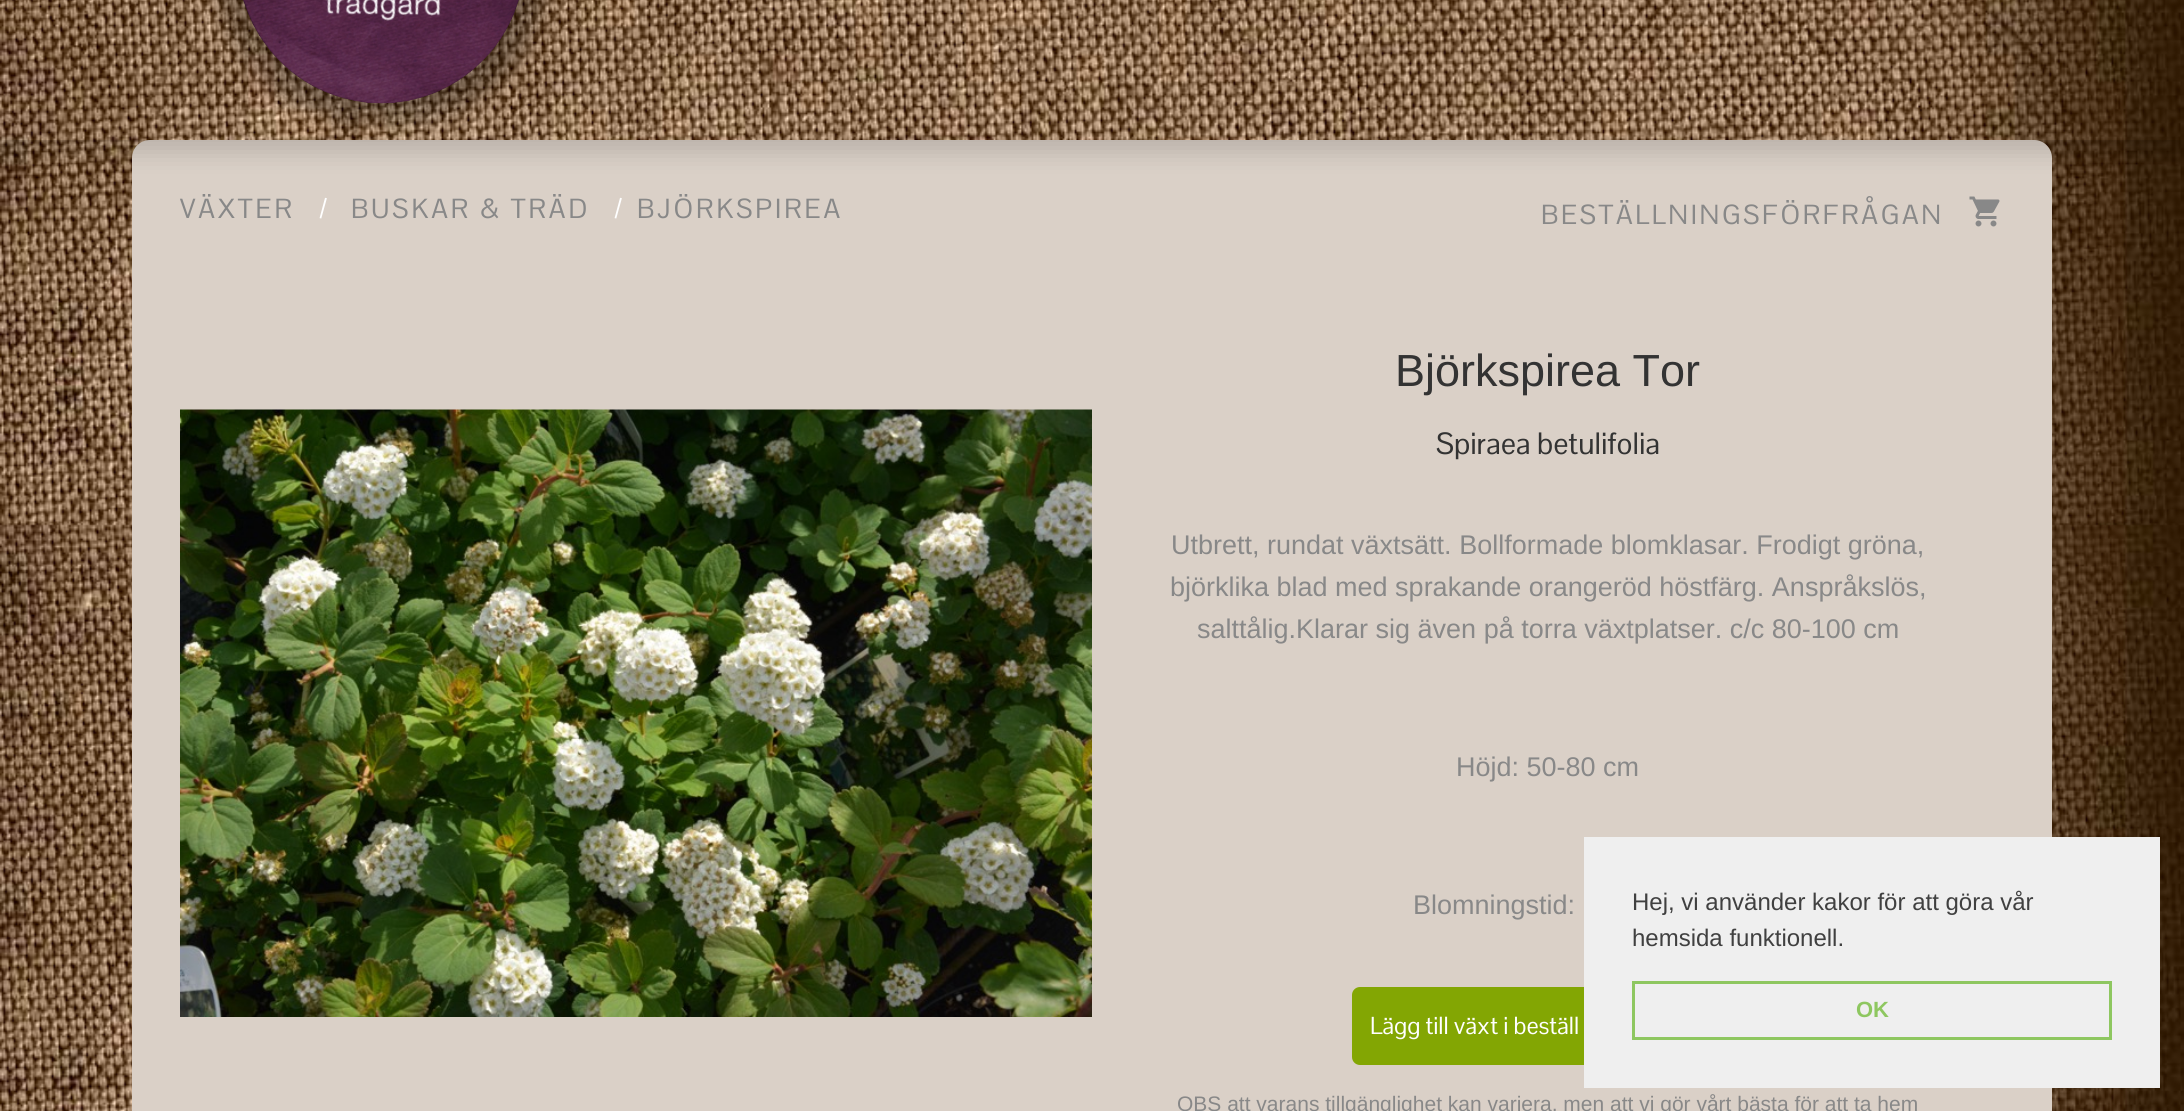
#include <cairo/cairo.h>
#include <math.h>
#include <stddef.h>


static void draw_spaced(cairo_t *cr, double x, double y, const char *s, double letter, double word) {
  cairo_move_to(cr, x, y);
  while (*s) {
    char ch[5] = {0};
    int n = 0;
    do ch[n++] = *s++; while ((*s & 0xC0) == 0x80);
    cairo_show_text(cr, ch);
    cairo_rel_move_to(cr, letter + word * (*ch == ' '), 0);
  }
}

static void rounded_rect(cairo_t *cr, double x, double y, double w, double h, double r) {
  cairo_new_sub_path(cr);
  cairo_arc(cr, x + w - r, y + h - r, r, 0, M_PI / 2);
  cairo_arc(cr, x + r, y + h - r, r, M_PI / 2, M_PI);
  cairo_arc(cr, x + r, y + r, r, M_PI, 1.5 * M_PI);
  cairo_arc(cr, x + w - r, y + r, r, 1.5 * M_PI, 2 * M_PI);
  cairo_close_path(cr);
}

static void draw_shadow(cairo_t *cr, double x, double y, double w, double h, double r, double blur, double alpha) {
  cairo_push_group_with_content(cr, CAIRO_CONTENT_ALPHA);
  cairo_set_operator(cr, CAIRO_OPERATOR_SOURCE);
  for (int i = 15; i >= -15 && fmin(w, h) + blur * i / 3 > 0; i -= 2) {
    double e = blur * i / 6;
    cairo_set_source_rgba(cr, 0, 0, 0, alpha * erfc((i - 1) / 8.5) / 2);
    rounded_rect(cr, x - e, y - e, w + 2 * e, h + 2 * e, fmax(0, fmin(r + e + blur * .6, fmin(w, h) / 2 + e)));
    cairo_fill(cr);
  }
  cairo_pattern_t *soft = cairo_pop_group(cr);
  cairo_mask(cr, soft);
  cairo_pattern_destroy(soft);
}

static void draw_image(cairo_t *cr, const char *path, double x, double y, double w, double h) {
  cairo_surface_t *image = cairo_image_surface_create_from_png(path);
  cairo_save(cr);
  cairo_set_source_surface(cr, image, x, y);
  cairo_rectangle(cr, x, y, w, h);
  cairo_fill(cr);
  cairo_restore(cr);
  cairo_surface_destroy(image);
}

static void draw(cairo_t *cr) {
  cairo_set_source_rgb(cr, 1, 1, 1);
  cairo_paint(cr);
  draw_image(cr, "images/1.png", 0, 0, 2184, 1111);
  cairo_set_source_rgb(cr, 218 / 255.0, 208 / 255.0, 199 / 255.0);
  rounded_rect(cr, 132, 140, 1920, 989, 18);
  cairo_fill(cr);
  cairo_save(cr);
  cairo_set_fill_rule(cr, CAIRO_FILL_RULE_EVEN_ODD);
  cairo_new_path(cr);
  cairo_move_to(cr, 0, 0);
  cairo_line_to(cr, 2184, 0);
  cairo_line_to(cr, 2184, 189);
  cairo_line_to(cr, 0, 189);
  cairo_close_path(cr);
  cairo_move_to(cr, 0, -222);
  cairo_line_to(cr, 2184, -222);
  cairo_line_to(cr, 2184, 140);
  cairo_line_to(cr, 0, 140);
  cairo_close_path(cr);
  cairo_clip(cr);
  cairo_set_source_rgb(cr, 0, 0, 0);
  draw_shadow(cr, 0, -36, 2184, 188, 0, 12, 0.15);
  cairo_restore(cr);
  cairo_set_source_rgb(cr, 0, 0, 0);
  draw_shadow(cr, 243, -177, 288, 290, 144, 15, 0.19);
  draw_shadow(cr, 215, -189, 333, 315, 166.5, 7.5, 0.2);
  draw_image(cr, "images/2.png", 243, 0, 276, 104);
  draw_image(cr, "images/3.png", 1969, 196, 31, 31);
  draw_image(cr, "images/4.png", 180, 409, 912, 608);
  cairo_set_source_rgb(cr, 131 / 255.0, 166 / 255.0, 3 / 255.0);
  rounded_rect(cr, 1352, 987, 393, 78, 8);
  cairo_fill(cr);
  cairo_set_source_rgb(cr, 239 / 255.0, 239 / 255.0, 239 / 255.0);
  cairo_rectangle(cr, 1584, 837, 576, 251);
  cairo_fill(cr);
  cairo_rectangle(cr, 1633.5, 982.5, 477, 56);
  cairo_set_source_rgb(cr, 142 / 255.0, 199 / 255.0, 96 / 255.0);
  cairo_set_line_width(cr, 3);
  cairo_stroke(cr);
  cairo_select_font_face(cr, "Pontano Sans", CAIRO_FONT_SLANT_NORMAL, CAIRO_FONT_WEIGHT_NORMAL);
  cairo_set_font_size(cr, 27);
  cairo_set_source_rgb(cr, 136 / 255.0, 136 / 255.0, 136 / 255.0);
  draw_spaced(cr, 180, 218, "VÄXTER", 3, 0);
  cairo_set_source_rgb(cr, 1, 1, 1);
  draw_spaced(cr, 319, 218, "/", 3, 0);
  cairo_set_source_rgb(cr, 136 / 255.0, 136 / 255.0, 136 / 255.0);
  draw_spaced(cr, 351, 218, "BUSKAR & TRÄD", 3, 0);
  cairo_set_source_rgb(cr, 1, 1, 1);
  draw_spaced(cr, 614, 218, "/", 3, 0);
  cairo_set_source_rgb(cr, 136 / 255.0, 136 / 255.0, 136 / 255.0);
  draw_spaced(cr, 637, 218, "BJÖRKSPIREA", 3, 0);
  draw_spaced(cr, 1541, 224, "BESTÄLLNINGSFÖRFRÅGAN", 2.7, 0);
  cairo_select_font_face(cr, "Liberation Sans", CAIRO_FONT_SLANT_NORMAL, CAIRO_FONT_WEIGHT_NORMAL);
  cairo_set_font_size(cr, 45);
  cairo_set_source_rgb(cr, 51 / 255.0, 51 / 255.0, 51 / 255.0);
  cairo_move_to(cr, 1395, 386);
  cairo_show_text(cr, "Björkspirea Tor");
  cairo_select_font_face(cr, "Pontano Sans", CAIRO_FONT_SLANT_NORMAL, CAIRO_FONT_WEIGHT_NORMAL);
  cairo_set_font_size(cr, 30);
  cairo_move_to(cr, 1436, 454);
  cairo_show_text(cr, "Spiraea betulifolia");
  cairo_select_font_face(cr, "Liberation Sans", CAIRO_FONT_SLANT_NORMAL, CAIRO_FONT_WEIGHT_NORMAL);
  cairo_set_font_size(cr, 27);
  cairo_set_source_rgb(cr, 136 / 255.0, 136 / 255.0, 136 / 255.0);
  cairo_move_to(cr, 1171, 554);
  cairo_show_text(cr, "Utbrett, rundat växtsätt. Bollformade blomklasar. Frodigt gröna,");
  cairo_move_to(cr, 1170, 596);
  cairo_show_text(cr, "björklika blad med sprakande orangeröd höstfärg. Anspråkslös,");
  cairo_move_to(cr, 1197, 638);
  cairo_show_text(cr, "salttålig.Klarar sig även på torra växtplatser. c/c 80-100 cm");
  cairo_move_to(cr, 1456, 776);
  cairo_show_text(cr, "Höjd: 50-80 cm");
  cairo_move_to(cr, 1413, 914);
  cairo_show_text(cr, "Blomningstid:");
  cairo_select_font_face(cr, "Pontano Sans", CAIRO_FONT_SLANT_NORMAL, CAIRO_FONT_WEIGHT_NORMAL);
  cairo_set_font_size(cr, 24);
  cairo_set_source_rgb(cr, 1, 1, 1);
  cairo_move_to(cr, 1370, 1034);
  cairo_show_text(cr, "Lägg till växt i beställ");
  cairo_select_font_face(cr, "Liberation Sans", CAIRO_FONT_SLANT_NORMAL, CAIRO_FONT_WEIGHT_NORMAL);
  cairo_set_font_size(cr, 21);
  cairo_set_source_rgb(cr, 136 / 255.0, 136 / 255.0, 136 / 255.0);
  cairo_move_to(cr, 1177, 1111);
  cairo_show_text(cr, "OBS att varans tillgänglighet kan variera, men att vi gör vårt bästa för att ta hem");
  cairo_set_font_size(cr, 24);
  cairo_set_source_rgb(cr, 64 / 255.0, 64 / 255.0, 64 / 255.0);
  cairo_move_to(cr, 1632, 910);
  cairo_show_text(cr, "Hej, vi använder kakor för att göra vår");
  cairo_move_to(cr, 1632, 946);
  cairo_show_text(cr, "hemsida funktionell.");
  cairo_select_font_face(cr, "Liberation Sans", CAIRO_FONT_SLANT_NORMAL, CAIRO_FONT_WEIGHT_BOLD);
  cairo_set_font_size(cr, 22);
  cairo_set_source_rgb(cr, 142 / 255.0, 199 / 255.0, 96 / 255.0);
  cairo_move_to(cr, 1856, 1017);
  cairo_show_text(cr, "OK");
}

int main(void) {
  cairo_surface_t *surface = cairo_image_surface_create(CAIRO_FORMAT_RGB24, 2184, 1111);
  cairo_t *cr = cairo_create(surface);
  cairo_font_options_t *options = cairo_font_options_create();
  cairo_font_options_set_hint_metrics(options, CAIRO_HINT_METRICS_OFF);
  cairo_font_options_set_hint_style(options, CAIRO_HINT_STYLE_NONE);
  cairo_set_font_options(cr, options);
  cairo_set_miter_limit(cr, 4);
  draw(cr);
  cairo_surface_write_to_png(surface, "out.png");
  cairo_font_options_destroy(options);
  cairo_destroy(cr);
  cairo_surface_destroy(surface);
  return 0;
}
